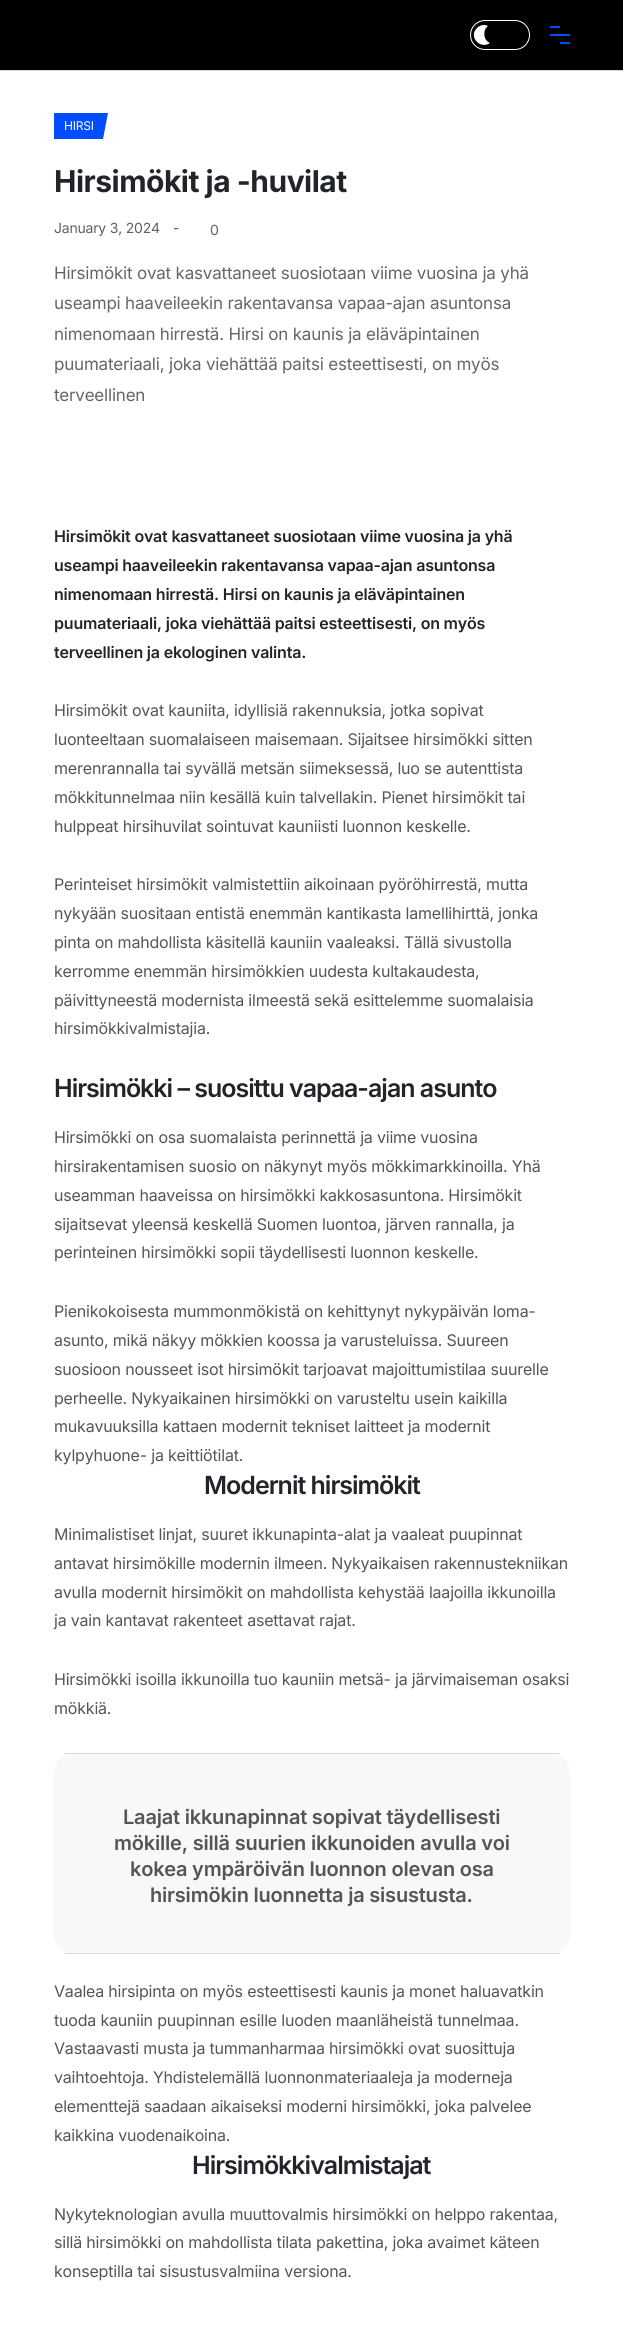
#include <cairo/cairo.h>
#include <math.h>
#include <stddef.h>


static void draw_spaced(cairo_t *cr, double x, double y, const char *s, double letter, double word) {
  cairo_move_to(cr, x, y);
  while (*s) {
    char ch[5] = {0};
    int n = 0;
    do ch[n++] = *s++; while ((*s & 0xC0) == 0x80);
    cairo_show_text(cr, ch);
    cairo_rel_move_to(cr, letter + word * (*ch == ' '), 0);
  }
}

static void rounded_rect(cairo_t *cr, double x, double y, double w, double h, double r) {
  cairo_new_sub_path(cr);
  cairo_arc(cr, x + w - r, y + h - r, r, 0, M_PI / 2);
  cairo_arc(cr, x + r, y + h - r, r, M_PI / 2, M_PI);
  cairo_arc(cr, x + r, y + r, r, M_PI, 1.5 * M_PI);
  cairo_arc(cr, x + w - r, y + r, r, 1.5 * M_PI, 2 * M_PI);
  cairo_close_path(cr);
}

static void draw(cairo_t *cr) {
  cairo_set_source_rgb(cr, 1, 1, 1);
  cairo_paint(cr);
  cairo_set_source_rgb(cr, 0, 0, 0);
  cairo_rectangle(cr, 0, 0, 623, 70);
  cairo_fill(cr);
  rounded_rect(cr, 470.5, 20.5, 59, 29, 14.5);
  cairo_set_source_rgb(cr, 1, 1, 1);
  cairo_set_line_width(cr, 1);
  cairo_stroke(cr);
  cairo_new_path(cr);
  cairo_move_to(cr, 484, 25);
  cairo_curve_to(cr, 481.5, 25, 479, 26, 477, 28);
  cairo_curve_to(cr, 468, 36.5, 480, 50, 490, 43);
  cairo_curve_to(cr, 483, 40, 482.5, 30, 488, 26);
  cairo_curve_to(cr, 487, 25.5, 485.5, 25, 484, 25);
  cairo_close_path(cr);
  cairo_fill(cr);
  cairo_set_source_rgb(cr, 0, 76 / 255.0, 1);
  cairo_rectangle(cr, 550, 26, 10, 2);
  cairo_fill(cr);
  cairo_rectangle(cr, 550, 34, 20, 2);
  cairo_fill(cr);
  cairo_rectangle(cr, 560, 42, 10, 2);
  cairo_fill(cr);
  cairo_set_source_rgb(cr, 217 / 255.0, 217 / 255.0, 217 / 255.0);
  cairo_rectangle(cr, 0, 70, 623, 1);
  cairo_fill(cr);
  cairo_set_source_rgb(cr, 0, 76 / 255.0, 1);
  cairo_new_path(cr);
  cairo_move_to(cr, 54, 113);
  cairo_line_to(cr, 54, 139);
  cairo_line_to(cr, 103, 139);
  cairo_line_to(cr, 108, 113);
  cairo_close_path(cr);
  cairo_fill(cr);
  cairo_set_source_rgb(cr, 248 / 255.0, 248 / 255.0, 248 / 255.0);
  rounded_rect(cr, 54, 1753, 516, 201, 20);
  cairo_fill(cr);
  cairo_set_source_rgb(cr, 217 / 255.0, 217 / 255.0, 217 / 255.0);
  cairo_rectangle(cr, 64, 1753, 496, 1);
  cairo_fill(cr);
  cairo_rectangle(cr, 64, 1953, 496, 1);
  cairo_fill(cr);
  cairo_select_font_face(cr, "Inter", CAIRO_FONT_SLANT_NORMAL, CAIRO_FONT_WEIGHT_NORMAL);
  cairo_set_font_size(cr, 12);
  cairo_set_source_rgb(cr, 1, 1, 1);
  draw_spaced(cr, 64, 130, "HIRSI", -0.2, 0);
  cairo_select_font_face(cr, "Inter", CAIRO_FONT_SLANT_NORMAL, CAIRO_FONT_WEIGHT_BOLD);
  cairo_set_font_size(cr, 30);
  cairo_set_source_rgb(cr, 33 / 255.0, 37 / 255.0, 41 / 255.0);
  draw_spaced(cr, 54, 192, "Hirsimökit ja -huvilat", -0.5, 0);
  cairo_select_font_face(cr, "Inter", CAIRO_FONT_SLANT_NORMAL, CAIRO_FONT_WEIGHT_NORMAL);
  cairo_set_font_size(cr, 14);
  cairo_set_source_rgb(cr, 96 / 255.0, 96 / 255.0, 96 / 255.0);
  draw_spaced(cr, 54, 233, "January 3, 2024", -0.2, 0);
  draw_spaced(cr, 173, 233, "-", -0.2, 0);
  draw_spaced(cr, 210, 235, "0", -0.2, 0);
  cairo_set_font_size(cr, 17);
  cairo_set_source_rgb(cr, 102 / 255.0, 102 / 255.0, 102 / 255.0);
  draw_spaced(cr, 54, 279, "Hirsimökit ovat kasvattaneet suosiotaan viime vuosina ja yhä", -0.2, 0);
  draw_spaced(cr, 54, 309, "useampi haaveileekin rakentavansa vapaa-ajan asuntonsa", -0.2, 0);
  draw_spaced(cr, 54, 340, "nimenomaan hirrestä. Hirsi on kaunis ja eläväpintainen", -0.2, 0);
  draw_spaced(cr, 54, 370, "puumateriaali, joka viehättää paitsi esteettisesti, on myös", -0.2, 0);
  draw_spaced(cr, 54, 401, "terveellinen", -0.2, 0);
  cairo_select_font_face(cr, "Inter SemiBold", CAIRO_FONT_SLANT_NORMAL, CAIRO_FONT_WEIGHT_NORMAL);
  cairo_set_font_size(cr, 16);
  cairo_set_source_rgb(cr, 33 / 255.0, 37 / 255.0, 41 / 255.0);
  draw_spaced(cr, 54, 542, "Hirsimökit ovat kasvattaneet suosiotaan viime vuosina ja yhä", -0.2, 0);
  draw_spaced(cr, 54, 571, "useampi haaveileekin rakentavansa vapaa-ajan asuntonsa", -0.2, 0);
  draw_spaced(cr, 54, 600, "nimenomaan hirrestä. Hirsi on kaunis ja eläväpintainen", -0.2, 0);
  draw_spaced(cr, 54, 629, "puumateriaali, joka viehättää paitsi esteettisesti, on myös", -0.2, 0);
  draw_spaced(cr, 54, 658, "terveellinen ja ekologinen valinta.", -0.2, 0);
  cairo_select_font_face(cr, "Inter", CAIRO_FONT_SLANT_NORMAL, CAIRO_FONT_WEIGHT_NORMAL);
  cairo_set_source_rgb(cr, 85 / 255.0, 85 / 255.0, 85 / 255.0);
  draw_spaced(cr, 54, 716, "Hirsimökit ovat kauniita, idyllisiä rakennuksia, jotka sopivat", -0.2, 0);
  draw_spaced(cr, 54, 745, "luonteeltaan suomalaiseen maisemaan. Sijaitsee hirsimökki sitten", -0.2, 0);
  draw_spaced(cr, 54, 774, "merenrannalla tai syvällä metsän siimeksessä, luo se autenttista", -0.2, 0);
  draw_spaced(cr, 54, 803, "mökkitunnelmaa niin kesällä kuin talvellakin. Pienet hirsimökit tai", -0.2, 0);
  draw_spaced(cr, 54, 832, "hulppeat hirsihuvilat sointuvat kauniisti luonnon keskelle.", -0.2, 0);
  draw_spaced(cr, 54, 890, "Perinteiset hirsimökit valmistettiin aikoinaan pyöröhirrestä, mutta", -0.2, 0);
  draw_spaced(cr, 54, 919, "nykyään suositaan entistä enemmän kantikasta lamellihirttä, jonka", -0.2, 0);
  draw_spaced(cr, 54, 948, "pinta on mahdollista käsitellä kauniin vaaleaksi. Tällä sivustolla", -0.2, 0);
  draw_spaced(cr, 54, 977, "kerromme enemmän hirsimökkien uudesta kultakaudesta,", -0.2, 0);
  draw_spaced(cr, 54, 1006, "päivittyneestä modernista ilmeestä sekä esittelemme suomalaisia", -0.2, 0);
  draw_spaced(cr, 54, 1034, "hirsimökkivalmistajia.", -0.2, 0);
  cairo_select_font_face(cr, "Inter SemiBold", CAIRO_FONT_SLANT_NORMAL, CAIRO_FONT_WEIGHT_NORMAL);
  cairo_set_font_size(cr, 25);
  cairo_set_source_rgb(cr, 33 / 255.0, 37 / 255.0, 41 / 255.0);
  draw_spaced(cr, 54, 1097, "Hirsimökki – suosittu vapaa-ajan asunto", -1, 0);
  cairo_select_font_face(cr, "Inter", CAIRO_FONT_SLANT_NORMAL, CAIRO_FONT_WEIGHT_NORMAL);
  cairo_set_font_size(cr, 16);
  cairo_set_source_rgb(cr, 85 / 255.0, 85 / 255.0, 85 / 255.0);
  draw_spaced(cr, 54, 1143, "Hirsimökki on osa suomalaista perinnettä ja viime vuosina", -0.2, 0);
  draw_spaced(cr, 54, 1172, "hirsirakentamisen suosio on näkynyt myös mökkimarkkinoilla. Yhä", -0.2, 0);
  draw_spaced(cr, 54, 1201, "useamman haaveissa on hirsimökki kakkosasuntona. Hirsimökit", -0.2, 0);
  draw_spaced(cr, 54, 1230, "sijaitsevat yleensä keskellä Suomen luontoa, järven rannalla, ja", -0.2, 0);
  draw_spaced(cr, 54, 1258, "perinteinen hirsimökki sopii täydellisesti luonnon keskelle.", -0.2, 0);
  draw_spaced(cr, 54, 1317, "Pienikokoisesta mummonmökistä on kehittynyt nykypäivän loma-", -0.2, 0);
  draw_spaced(cr, 54, 1346, "asunto, mikä näkyy mökkien koossa ja varusteluissa. Suureen", -0.2, 0);
  draw_spaced(cr, 54, 1375, "suosioon nousseet isot hirsimökit tarjoavat majoittumistilaa suurelle", -0.2, 0);
  draw_spaced(cr, 54, 1404, "perheelle. Nykyaikainen hirsimökki on varusteltu usein kaikilla", -0.2, 0);
  draw_spaced(cr, 54, 1432, "mukavuuksilla kattaen modernit tekniset laitteet ja modernit", -0.2, 0);
  draw_spaced(cr, 54, 1461, "kylpyhuone- ja keittiötilat.", -0.2, 0);
  cairo_select_font_face(cr, "Inter SemiBold", CAIRO_FONT_SLANT_NORMAL, CAIRO_FONT_WEIGHT_NORMAL);
  cairo_set_font_size(cr, 25);
  cairo_set_source_rgb(cr, 33 / 255.0, 37 / 255.0, 41 / 255.0);
  draw_spaced(cr, 204, 1494, "Modernit hirsimökit", -1, 0);
  cairo_select_font_face(cr, "Inter", CAIRO_FONT_SLANT_NORMAL, CAIRO_FONT_WEIGHT_NORMAL);
  cairo_set_font_size(cr, 16);
  cairo_set_source_rgb(cr, 85 / 255.0, 85 / 255.0, 85 / 255.0);
  draw_spaced(cr, 54, 1540, "Minimalistiset linjat, suuret ikkunapinta-alat ja vaaleat puupinnat", -0.2, 0);
  draw_spaced(cr, 54, 1569, "antavat hirsimökille modernin ilmeen. Nykyaikaisen rakennustekniikan", -0.2, 0);
  draw_spaced(cr, 54, 1598, "avulla modernit hirsimökit on mahdollista kehystää laajoilla ikkunoilla", -0.2, 0);
  draw_spaced(cr, 54, 1626, "ja vain kantavat rakenteet asettavat rajat.", -0.2, 0);
  draw_spaced(cr, 54, 1685, "Hirsimökki isoilla ikkunoilla tuo kauniin metsä- ja järvimaiseman osaksi", -0.2, 0);
  draw_spaced(cr, 54, 1714, "mökkiä.", -0.2, 0);
  cairo_select_font_face(cr, "Inter SemiBold", CAIRO_FONT_SLANT_NORMAL, CAIRO_FONT_WEIGHT_NORMAL);
  cairo_set_font_size(cr, 20);
  draw_spaced(cr, 123, 1824, "Laajat ikkunapinnat sopivat täydellisesti", -0.2, 0);
  draw_spaced(cr, 114, 1850, "mökille, sillä suurien ikkunoiden avulla voi", -0.2, 0);
  draw_spaced(cr, 130, 1876, "kokea ympäröivän luonnon olevan osa", -0.2, 0);
  draw_spaced(cr, 150, 1902, "hirsimökin luonnetta ja sisustusta.", -0.2, 0);
  cairo_select_font_face(cr, "Inter", CAIRO_FONT_SLANT_NORMAL, CAIRO_FONT_WEIGHT_NORMAL);
  cairo_set_font_size(cr, 16);
  draw_spaced(cr, 54, 1997, "Vaalea hirsipinta on myös esteettisesti kaunis ja monet haluavatkin", -0.2, 0);
  draw_spaced(cr, 54, 2026, "tuoda kauniin puupinnan esille luoden maanläheistä tunnelmaa.", -0.2, 0);
  draw_spaced(cr, 54, 2054, "Vastaavasti musta ja tummanharmaa hirsimökki ovat suosittuja", -0.2, 0);
  draw_spaced(cr, 54, 2083, "vaihtoehtoja. Yhdistelemällä luonnonmateriaaleja ja moderneja", -0.2, 0);
  draw_spaced(cr, 54, 2112, "elementtejä saadaan aikaiseksi moderni hirsimökki, joka palvelee", -0.2, 0);
  draw_spaced(cr, 54, 2141, "kaikkina vuodenaikoina.", -0.2, 0);
  cairo_select_font_face(cr, "Inter SemiBold", CAIRO_FONT_SLANT_NORMAL, CAIRO_FONT_WEIGHT_NORMAL);
  cairo_set_font_size(cr, 25);
  cairo_set_source_rgb(cr, 33 / 255.0, 37 / 255.0, 41 / 255.0);
  draw_spaced(cr, 192, 2174, "Hirsimökkivalmistajat", -1, 0);
  cairo_select_font_face(cr, "Inter", CAIRO_FONT_SLANT_NORMAL, CAIRO_FONT_WEIGHT_NORMAL);
  cairo_set_font_size(cr, 16);
  cairo_set_source_rgb(cr, 85 / 255.0, 85 / 255.0, 85 / 255.0);
  draw_spaced(cr, 54, 2220, "Nykyteknologian avulla muuttovalmis hirsimökki on helppo rakentaa,", -0.2, 0);
  draw_spaced(cr, 54, 2248, "sillä hirsimökki on mahdollista tilata pakettina, joka avaimet käteen", -0.2, 0);
  draw_spaced(cr, 54, 2277, "konseptilla tai sisustusvalmiina versiona.", -0.2, 0);
}

int main(void) {
  cairo_surface_t *surface = cairo_image_surface_create(CAIRO_FORMAT_RGB24, 623, 2328);
  cairo_t *cr = cairo_create(surface);
  cairo_font_options_t *options = cairo_font_options_create();
  cairo_font_options_set_hint_metrics(options, CAIRO_HINT_METRICS_OFF);
  cairo_font_options_set_hint_style(options, CAIRO_HINT_STYLE_NONE);
  cairo_set_font_options(cr, options);
  cairo_set_miter_limit(cr, 4);
  draw(cr);
  cairo_surface_write_to_png(surface, "out.png");
  cairo_font_options_destroy(options);
  cairo_destroy(cr);
  cairo_surface_destroy(surface);
  return 0;
}
